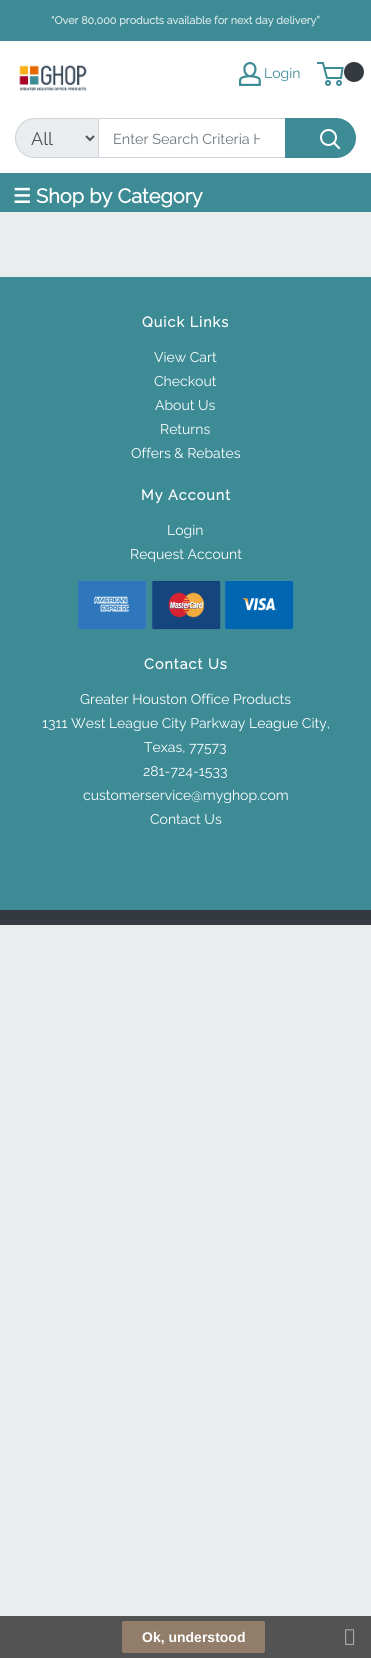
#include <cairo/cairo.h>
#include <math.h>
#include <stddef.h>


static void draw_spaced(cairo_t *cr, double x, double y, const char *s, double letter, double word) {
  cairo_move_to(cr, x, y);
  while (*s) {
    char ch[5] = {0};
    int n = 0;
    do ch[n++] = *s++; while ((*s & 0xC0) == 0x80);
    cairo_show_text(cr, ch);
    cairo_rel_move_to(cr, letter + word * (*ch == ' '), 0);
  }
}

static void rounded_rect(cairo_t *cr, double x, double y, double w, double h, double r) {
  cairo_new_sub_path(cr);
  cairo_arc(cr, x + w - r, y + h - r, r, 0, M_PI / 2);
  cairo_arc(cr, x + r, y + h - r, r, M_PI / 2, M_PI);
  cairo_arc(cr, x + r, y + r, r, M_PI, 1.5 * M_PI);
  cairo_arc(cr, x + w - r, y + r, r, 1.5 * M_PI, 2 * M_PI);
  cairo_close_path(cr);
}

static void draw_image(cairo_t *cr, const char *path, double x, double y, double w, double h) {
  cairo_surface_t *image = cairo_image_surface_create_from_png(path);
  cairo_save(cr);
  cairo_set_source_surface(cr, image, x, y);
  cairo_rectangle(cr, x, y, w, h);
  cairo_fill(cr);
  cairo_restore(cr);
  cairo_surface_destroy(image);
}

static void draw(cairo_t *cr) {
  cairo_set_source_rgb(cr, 234 / 255.0, 237 / 255.0, 237 / 255.0);
  cairo_paint(cr);
  cairo_set_source_rgb(cr, 1, 1, 1);
  cairo_rectangle(cr, 0, 41, 371, 132);
  cairo_fill(cr);
  cairo_set_source_rgb(cr, 61 / 255.0, 139 / 255.0, 149 / 255.0);
  cairo_rectangle(cr, 0, 0, 371, 41);
  cairo_fill(cr);
  draw_image(cr, "images/1.png", 239, 62, 22, 24);
  cairo_new_path(cr);
  cairo_move_to(cr, 324.5, 68);
  cairo_line_to(cr, 342.5, 68);
  cairo_line_to(cr, 341, 78);
  cairo_line_to(cr, 327, 78);
  cairo_line_to(cr, 323, 63);
  cairo_line_to(cr, 317, 63);
  cairo_stroke(cr);
  cairo_set_source_rgb(cr, 52 / 255.0, 58 / 255.0, 64 / 255.0);
  cairo_arc(cr, 354, 72, 10, 0, 2 * M_PI);
  cairo_fill(cr);
  cairo_arc(cr, 328, 83, 2, 0, 2 * M_PI);
  cairo_set_source_rgb(cr, 61 / 255.0, 139 / 255.0, 149 / 255.0);
  cairo_stroke(cr);
  cairo_arc(cr, 339, 83, 2, 0, 2 * M_PI);
  cairo_stroke(cr);
  draw_image(cr, "images/2.png", 19, 65, 68, 26);
  cairo_set_source_rgb(cr, 234 / 255.0, 237 / 255.0, 237 / 255.0);
  cairo_new_path(cr);
  cairo_move_to(cr, 35, 118.5);
  cairo_line_to(cr, 97, 118.5);
  cairo_curve_to(cr, 98, 118.5, 98.5, 119, 98.5, 120);
  cairo_line_to(cr, 98.5, 156);
  cairo_curve_to(cr, 98.5, 157, 98, 157.5, 97, 157.5);
  cairo_line_to(cr, 35, 157.5);
  cairo_curve_to(cr, 24, 157.5, 15.5, 149, 15.5, 138);
  cairo_curve_to(cr, 15.5, 127, 24, 118.5, 35, 118.5);
  cairo_close_path(cr);
  cairo_fill_preserve(cr);
  cairo_set_source_rgb(cr, 206 / 255.0, 212 / 255.0, 218 / 255.0);
  cairo_set_line_width(cr, 1);
  cairo_stroke(cr);
  cairo_new_path(cr);
  cairo_move_to(cr, 86, 136);
  cairo_line_to(cr, 90, 140);
  cairo_line_to(cr, 94, 136);
  cairo_set_source_rgb(cr, 73 / 255.0, 80 / 255.0, 87 / 255.0);
  cairo_set_line_width(cr, 2);
  cairo_stroke(cr);
  cairo_rectangle(cr, 98.5, 118.5, 187, 39);
  cairo_set_source_rgb(cr, 206 / 255.0, 212 / 255.0, 218 / 255.0);
  cairo_set_line_width(cr, 1);
  cairo_stroke(cr);
  cairo_set_source_rgb(cr, 61 / 255.0, 139 / 255.0, 149 / 255.0);
  cairo_new_path(cr);
  cairo_move_to(cr, 285, 118);
  cairo_line_to(cr, 336, 118);
  cairo_curve_to(cr, 347, 118, 356, 127, 356, 138);
  cairo_curve_to(cr, 356, 149, 347, 158, 336, 158);
  cairo_line_to(cr, 285, 158);
  cairo_close_path(cr);
  cairo_fill(cr);
  cairo_new_path(cr);
  cairo_move_to(cr, 339, 148);
  cairo_line_to(cr, 334, 143);
  cairo_set_source_rgb(cr, 1, 1, 1);
  cairo_set_line_width(cr, 2);
  cairo_set_line_cap(cr, CAIRO_LINE_CAP_SQUARE);
  cairo_stroke(cr);
  cairo_arc(cr, 328.5, 137.5, 7.5, 0, 2 * M_PI);
  cairo_set_line_cap(cr, CAIRO_LINE_CAP_BUTT);
  cairo_stroke(cr);
  cairo_set_source_rgb(cr, 61 / 255.0, 139 / 255.0, 149 / 255.0);
  cairo_rectangle(cr, 0, 173, 371, 39);
  cairo_fill(cr);
  cairo_rectangle(cr, 0, 277, 371, 633);
  cairo_fill(cr);
  draw_image(cr, "images/3.png", 77, 580, 70, 50);
  draw_image(cr, "images/4.png", 151, 580, 70, 50);
  draw_image(cr, "images/5.png", 224, 580, 70, 50);
  cairo_set_source_rgb(cr, 52 / 255.0, 58 / 255.0, 64 / 255.0);
  cairo_rectangle(cr, 0, 910, 371, 15);
  cairo_fill(cr);
  cairo_set_source_rgb(cr, 83 / 255.0, 83 / 255.0, 83 / 255.0);
  cairo_rectangle(cr, 0, 1616, 371, 42);
  cairo_fill(cr);
  cairo_set_source_rgb(cr, 146 / 255.0, 125 / 255.0, 106 / 255.0);
  rounded_rect(cr, 122, 1621, 143, 32, 2);
  cairo_fill(cr);
  draw_image(cr, "images/6.png", 345, 1629, 10, 16);
  cairo_select_font_face(cr, "Raleway", CAIRO_FONT_SLANT_NORMAL, CAIRO_FONT_WEIGHT_BOLD);
  cairo_set_font_size(cr, 10.8);
  cairo_set_source_rgb(cr, 216 / 255.0, 232 / 255.0, 234 / 255.0);
  cairo_move_to(cr, 51, 24);
  cairo_show_text(cr, "“Over 80,000 products available for next day delivery”");
  cairo_select_font_face(cr, "Raleway Thin", CAIRO_FONT_SLANT_NORMAL, CAIRO_FONT_WEIGHT_NORMAL);
  cairo_set_font_size(cr, 14);
  cairo_set_source_rgb(cr, 61 / 255.0, 139 / 255.0, 149 / 255.0);
  cairo_move_to(cr, 264, 78);
  cairo_show_text(cr, "Login");
  cairo_set_font_size(cr, 18);
  cairo_set_source_rgb(cr, 73 / 255.0, 80 / 255.0, 87 / 255.0);
  cairo_move_to(cr, 31, 145);
  cairo_show_text(cr, "All");
  cairo_save(cr);
  cairo_rectangle(cr, 113, 130, 147, 17);
  cairo_clip(cr);
  cairo_set_font_size(cr, 14.4);
  cairo_set_source_rgb(cr, 108 / 255.0, 117 / 255.0, 125 / 255.0);
  cairo_move_to(cr, 113, 144);
  cairo_show_text(cr, "Enter Search Criteria H");
  cairo_restore(cr);
  cairo_select_font_face(cr, "DejaVu Sans", CAIRO_FONT_SLANT_NORMAL, CAIRO_FONT_WEIGHT_BOLD);
  cairo_set_font_size(cr, 20);
  cairo_set_source_rgb(cr, 1, 1, 1);
  cairo_move_to(cr, 13, 203);
  cairo_show_text(cr, "☰");
  cairo_select_font_face(cr, "Raleway", CAIRO_FONT_SLANT_NORMAL, CAIRO_FONT_WEIGHT_BOLD);
  cairo_move_to(cr, 36, 203);
  cairo_show_text(cr, "Shop by Category");
  cairo_set_font_size(cr, 14.4);
  draw_spaced(cr, 142, 327, "Quick Links", 1, 0);
  cairo_select_font_face(cr, "Raleway Thin", CAIRO_FONT_SLANT_NORMAL, CAIRO_FONT_WEIGHT_NORMAL);
  cairo_set_font_size(cr, 14);
  cairo_move_to(cr, 154, 362);
  cairo_show_text(cr, "View Cart");
  cairo_move_to(cr, 154, 386);
  cairo_show_text(cr, "Checkout");
  cairo_move_to(cr, 155, 410);
  cairo_show_text(cr, "About Us");
  cairo_move_to(cr, 160, 434);
  cairo_show_text(cr, "Returns");
  cairo_move_to(cr, 131, 458);
  cairo_show_text(cr, "Offers & Rebates");
  cairo_select_font_face(cr, "Raleway", CAIRO_FONT_SLANT_NORMAL, CAIRO_FONT_WEIGHT_BOLD);
  cairo_set_font_size(cr, 14.4);
  draw_spaced(cr, 141, 500, "My Account", 1, 0);
  cairo_select_font_face(cr, "Raleway Thin", CAIRO_FONT_SLANT_NORMAL, CAIRO_FONT_WEIGHT_NORMAL);
  cairo_set_font_size(cr, 14);
  cairo_move_to(cr, 167, 535);
  cairo_show_text(cr, "Login");
  cairo_move_to(cr, 130, 559);
  cairo_show_text(cr, "Request Account");
  cairo_select_font_face(cr, "Raleway", CAIRO_FONT_SLANT_NORMAL, CAIRO_FONT_WEIGHT_BOLD);
  cairo_set_font_size(cr, 14.4);
  draw_spaced(cr, 144, 669, "Contact Us", 1, 0);
  cairo_select_font_face(cr, "Raleway Thin", CAIRO_FONT_SLANT_NORMAL, CAIRO_FONT_WEIGHT_NORMAL);
  cairo_set_font_size(cr, 14);
  cairo_move_to(cr, 80, 704);
  cairo_show_text(cr, "Greater Houston Office Products");
  cairo_move_to(cr, 42, 728);
  cairo_show_text(cr, "1311 West League City Parkway League City,");
  cairo_move_to(cr, 144, 752);
  cairo_show_text(cr, "Texas, 77573");
  cairo_move_to(cr, 143, 776);
  cairo_show_text(cr, "281-724-1533");
  cairo_move_to(cr, 83, 800);
  cairo_show_text(cr, "customerservice@myghop.com");
  cairo_move_to(cr, 150, 824);
  cairo_show_text(cr, "Contact Us");
  cairo_select_font_face(cr, "Liberation Sans", CAIRO_FONT_SLANT_NORMAL, CAIRO_FONT_WEIGHT_BOLD);
  cairo_move_to(cr, 142, 1642);
  cairo_show_text(cr, "Ok, understood");
}

int main(void) {
  cairo_surface_t *surface = cairo_image_surface_create(CAIRO_FORMAT_RGB24, 371, 1658);
  cairo_t *cr = cairo_create(surface);
  cairo_font_options_t *options = cairo_font_options_create();
  cairo_font_options_set_hint_metrics(options, CAIRO_HINT_METRICS_OFF);
  cairo_font_options_set_hint_style(options, CAIRO_HINT_STYLE_NONE);
  cairo_set_font_options(cr, options);
  cairo_set_miter_limit(cr, 4);
  draw(cr);
  cairo_surface_write_to_png(surface, "out.png");
  cairo_font_options_destroy(options);
  cairo_destroy(cr);
  cairo_surface_destroy(surface);
  return 0;
}
